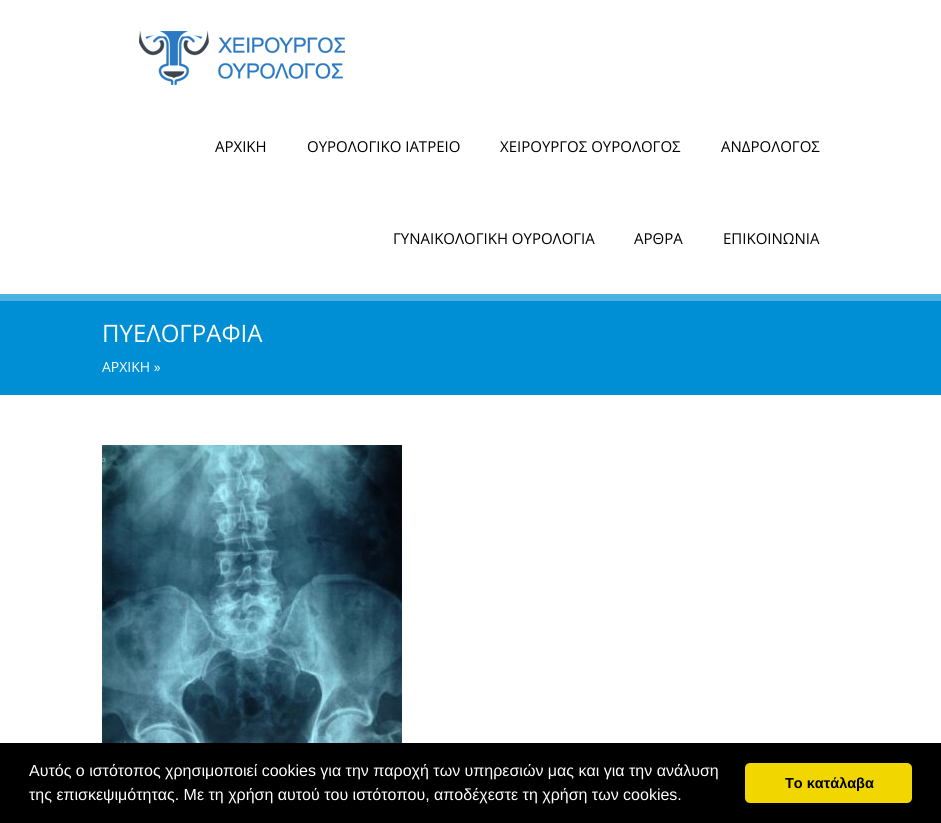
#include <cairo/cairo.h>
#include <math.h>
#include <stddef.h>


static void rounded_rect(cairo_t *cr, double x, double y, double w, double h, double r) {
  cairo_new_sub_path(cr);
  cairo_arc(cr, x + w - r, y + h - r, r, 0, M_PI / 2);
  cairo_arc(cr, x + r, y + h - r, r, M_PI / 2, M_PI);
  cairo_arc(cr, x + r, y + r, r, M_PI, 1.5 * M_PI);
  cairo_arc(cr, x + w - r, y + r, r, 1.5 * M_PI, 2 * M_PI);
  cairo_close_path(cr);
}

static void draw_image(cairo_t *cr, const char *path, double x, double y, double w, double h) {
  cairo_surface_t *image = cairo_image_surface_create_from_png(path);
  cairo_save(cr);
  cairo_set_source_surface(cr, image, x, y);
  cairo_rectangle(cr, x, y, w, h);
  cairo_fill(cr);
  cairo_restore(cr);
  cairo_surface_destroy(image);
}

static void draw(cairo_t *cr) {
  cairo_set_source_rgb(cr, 1, 1, 1);
  cairo_paint(cr);
  draw_image(cr, "images/1.png", 139, 31, 206, 54);
  cairo_set_source_rgb(cr, 0, 143 / 255.0, 213 / 255.0);
  cairo_rectangle(cr, 0, 301, 941, 94);
  cairo_fill(cr);
  cairo_set_source_rgb(cr, 77 / 255.0, 177 / 255.0, 226 / 255.0);
  cairo_rectangle(cr, 0, 294, 941, 7);
  cairo_fill(cr);
  draw_image(cr, "images/2.png", 102, 445, 300, 298);
  cairo_set_source_rgb(cr, 0, 0, 0);
  cairo_rectangle(cr, 0, 743, 941, 80);
  cairo_fill(cr);
  cairo_set_source_rgb(cr, 241 / 255.0, 214 / 255.0, 0);
  rounded_rect(cr, 745, 763, 167, 40, 5);
  cairo_fill(cr);
  cairo_select_font_face(cr, "Open Sans", CAIRO_FONT_SLANT_NORMAL, CAIRO_FONT_WEIGHT_NORMAL);
  cairo_set_font_size(cr, 15);
  cairo_set_source_rgb(cr, 0, 0, 0);
  cairo_move_to(cr, 215, 152);
  cairo_show_text(cr, "ΑΡΧΙΚΗ");
  cairo_move_to(cr, 307, 152);
  cairo_show_text(cr, "ΟΥΡΟΛΟΓΙΚΟ ΙΑΤΡΕΙΟ");
  cairo_move_to(cr, 500, 152);
  cairo_show_text(cr, "ΧΕΙΡΟΥΡΓΟΣ ΟΥΡΟΛΟΓΟΣ");
  cairo_move_to(cr, 721, 152);
  cairo_show_text(cr, "ΑΝΔΡΟΛΟΓΟΣ");
  cairo_move_to(cr, 393, 244);
  cairo_show_text(cr, "ΓΥΝΑΙΚΟΛΟΓΙΚΗ ΟΥΡΟΛΟΓΙΑ");
  cairo_move_to(cr, 634, 244);
  cairo_show_text(cr, "ΑΡΘΡΑ");
  cairo_move_to(cr, 723, 244);
  cairo_show_text(cr, "ΕΠΙΚΟΙΝΩΝΙΑ");
  cairo_set_font_size(cr, 24);
  cairo_set_source_rgb(cr, 1, 1, 1);
  cairo_move_to(cr, 102, 342);
  cairo_show_text(cr, "ΠΥΕΛΟΓΡΑΦΙΑ");
  cairo_set_font_size(cr, 14);
  cairo_move_to(cr, 102, 372);
  cairo_show_text(cr, "ΑΡΧΙΚΗ »");
  cairo_select_font_face(cr, "Liberation Sans", CAIRO_FONT_SLANT_NORMAL, CAIRO_FONT_WEIGHT_NORMAL);
  cairo_set_font_size(cr, 16);
  cairo_move_to(cr, 29, 776);
  cairo_show_text(cr, "Αυτός ο ιστότοπος χρησιμοποιεί cookies για την παροχή των υπηρεσιών μας και για την ανάλυση");
  cairo_move_to(cr, 29, 800);
  cairo_show_text(cr, "της επισκεψιμότητας. Με τη χρήση αυτού του ιστότοπου, αποδέχεστε τη χρήση των cookies.");
  cairo_select_font_face(cr, "Liberation Sans", CAIRO_FONT_SLANT_NORMAL, CAIRO_FONT_WEIGHT_BOLD);
  cairo_set_font_size(cr, 14.5);
  cairo_set_source_rgb(cr, 0, 0, 0);
  cairo_move_to(cr, 785, 788);
  cairo_show_text(cr, "Το κατάλαβα");
}

int main(void) {
  cairo_surface_t *surface = cairo_image_surface_create(CAIRO_FORMAT_RGB24, 941, 823);
  cairo_t *cr = cairo_create(surface);
  cairo_font_options_t *options = cairo_font_options_create();
  cairo_font_options_set_hint_metrics(options, CAIRO_HINT_METRICS_OFF);
  cairo_font_options_set_hint_style(options, CAIRO_HINT_STYLE_NONE);
  cairo_set_font_options(cr, options);
  cairo_set_miter_limit(cr, 4);
  draw(cr);
  cairo_surface_write_to_png(surface, "out.png");
  cairo_font_options_destroy(options);
  cairo_destroy(cr);
  cairo_surface_destroy(surface);
  return 0;
}
